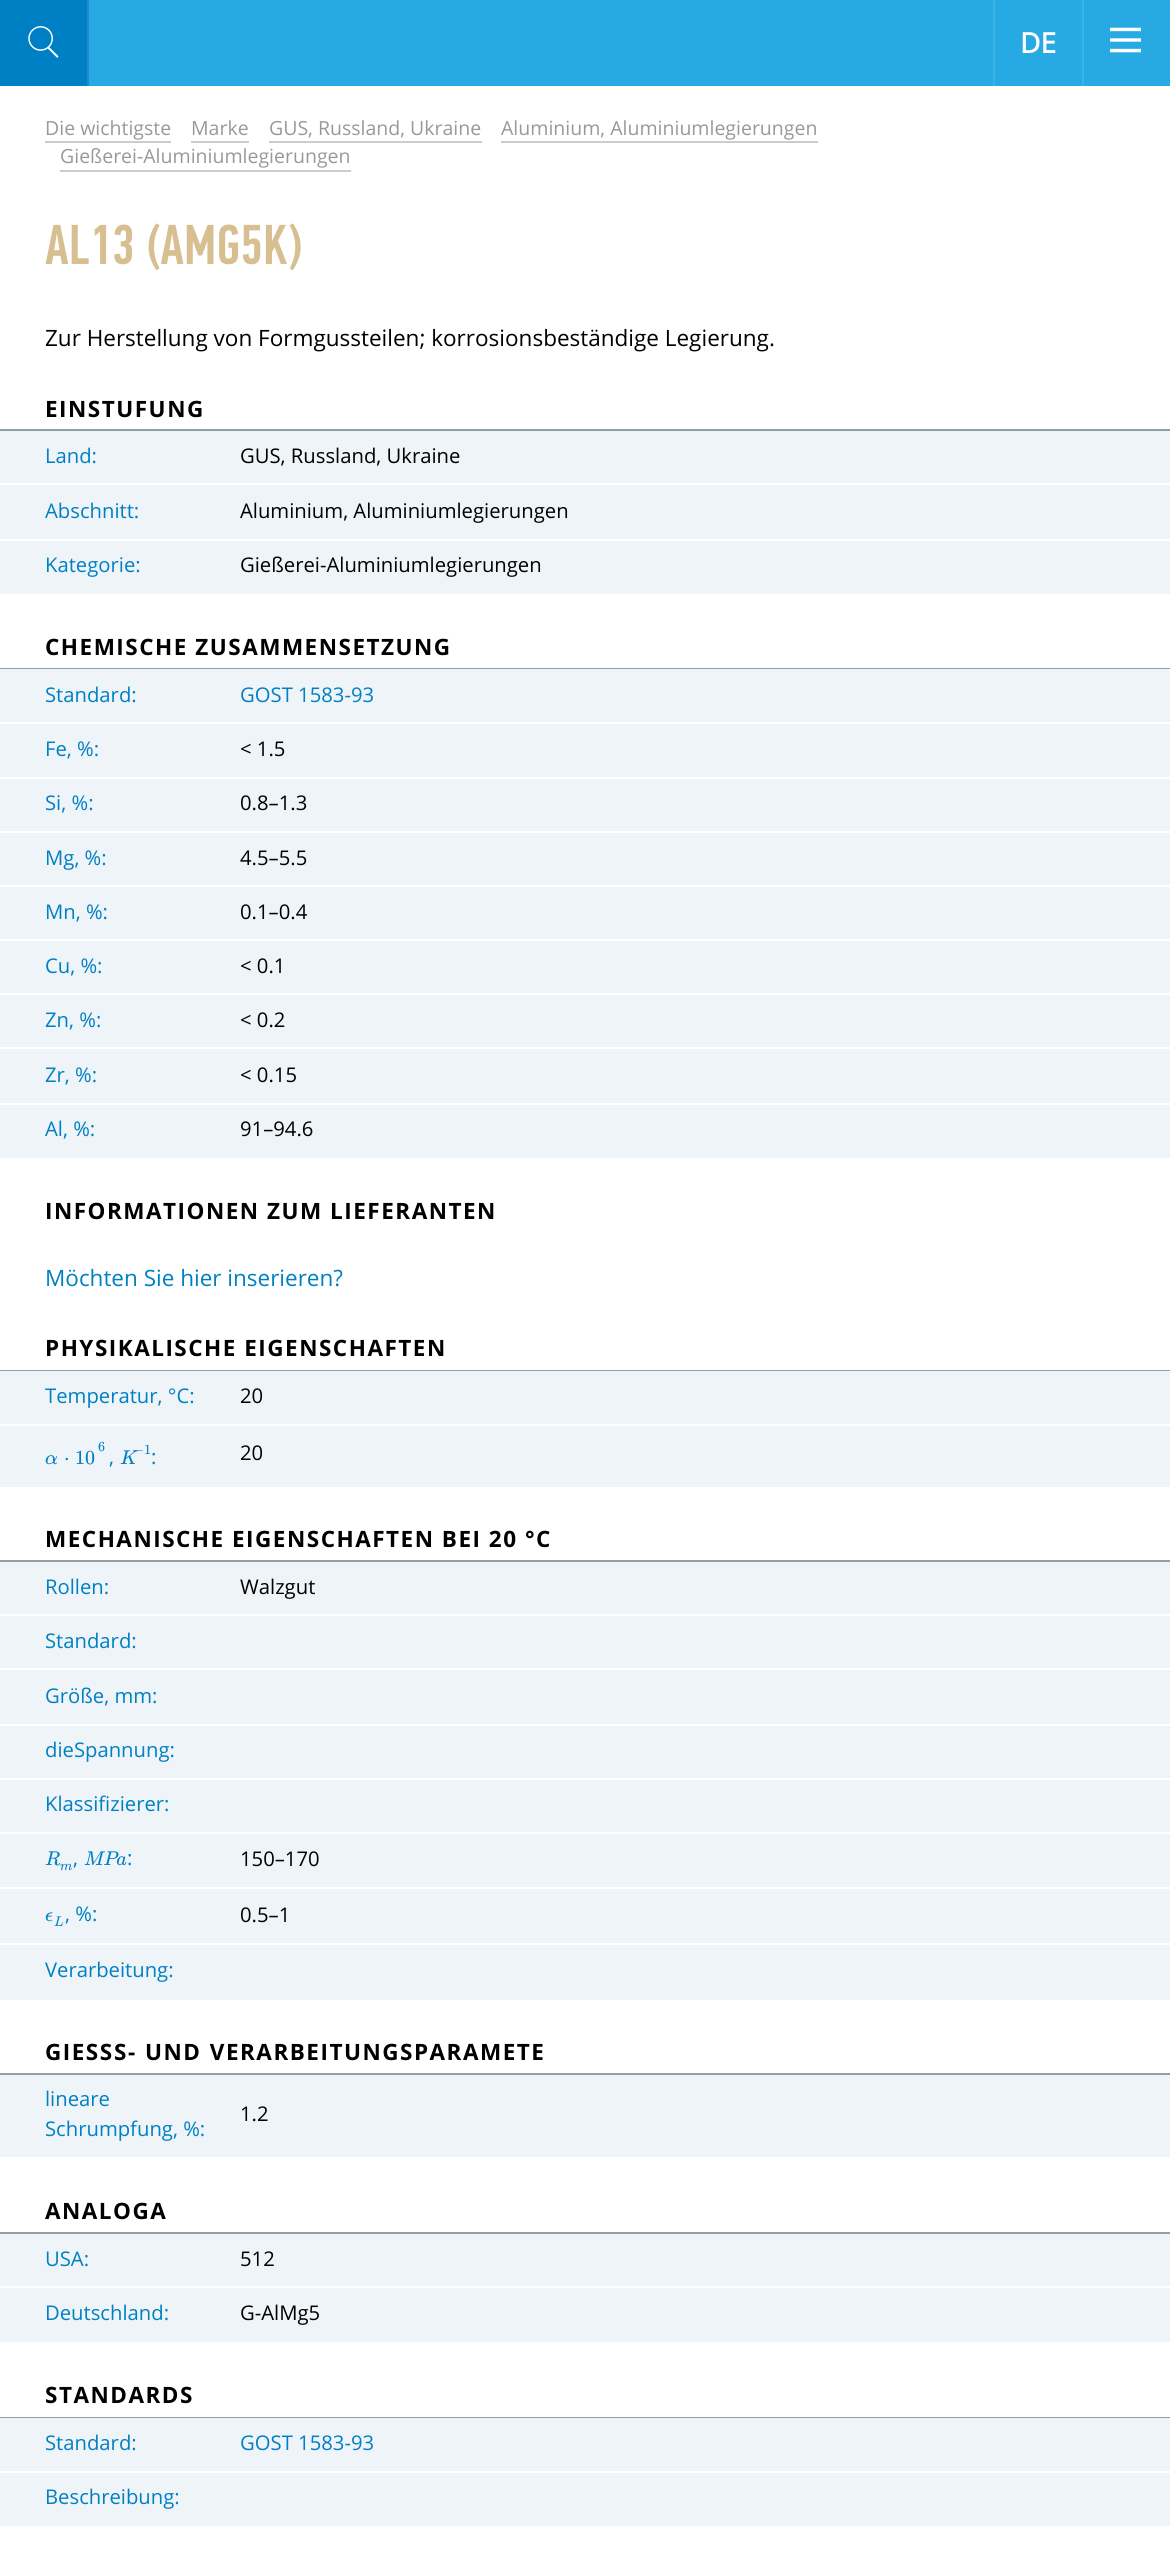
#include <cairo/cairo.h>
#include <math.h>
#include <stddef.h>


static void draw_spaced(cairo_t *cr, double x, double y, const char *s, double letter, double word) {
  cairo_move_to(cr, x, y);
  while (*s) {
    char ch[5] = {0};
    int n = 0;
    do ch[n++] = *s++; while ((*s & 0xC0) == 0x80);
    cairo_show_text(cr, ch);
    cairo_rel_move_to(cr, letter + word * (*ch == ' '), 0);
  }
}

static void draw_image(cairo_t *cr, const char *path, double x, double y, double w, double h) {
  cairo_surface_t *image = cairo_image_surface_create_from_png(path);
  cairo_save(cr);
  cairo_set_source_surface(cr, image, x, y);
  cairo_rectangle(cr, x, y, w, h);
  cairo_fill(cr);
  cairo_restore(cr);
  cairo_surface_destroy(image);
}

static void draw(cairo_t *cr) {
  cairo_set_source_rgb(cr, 1, 1, 1);
  cairo_paint(cr);
  cairo_set_source_rgb(cr, 39 / 255.0, 169 / 255.0, 228 / 255.0);
  cairo_rectangle(cr, 89, 0, 1081, 86);
  cairo_fill(cr);
  cairo_set_source_rgb(cr, 0, 128 / 255.0, 196 / 255.0);
  cairo_rectangle(cr, 0, 0, 87, 86);
  cairo_fill(cr);
  cairo_set_source_rgb(cr, 26 / 255.0, 141 / 255.0, 202 / 255.0);
  cairo_rectangle(cr, 87, 0, 2, 86);
  cairo_fill(cr);
  draw_image(cr, "images/1.png", 28, 26, 31, 32);
  cairo_set_source_rgb(cr, 61 / 255.0, 178 / 255.0, 231 / 255.0);
  cairo_rectangle(cr, 993, 0, 2, 86);
  cairo_fill(cr);
  cairo_rectangle(cr, 1082, 0, 2, 86);
  cairo_fill(cr);
  draw_image(cr, "images/2.png", 1110, 27, 31, 26);
  cairo_set_source_rgb(cr, 204 / 255.0, 204 / 255.0, 204 / 255.0);
  cairo_rectangle(cr, 45, 141, 126, 2);
  cairo_fill(cr);
  cairo_rectangle(cr, 191, 141, 58, 2);
  cairo_fill(cr);
  cairo_rectangle(cr, 269, 141, 213, 2);
  cairo_fill(cr);
  cairo_rectangle(cr, 501, 141, 317, 2);
  cairo_fill(cr);
  cairo_rectangle(cr, 60, 170, 291, 2);
  cairo_fill(cr);
  cairo_set_source_rgb(cr, 144 / 255.0, 159 / 255.0, 167 / 255.0);
  cairo_rectangle(cr, 0, 429, 1170, 2);
  cairo_fill(cr);
  cairo_set_source_rgb(cr, 238 / 255.0, 244 / 255.0, 247 / 255.0);
  cairo_rectangle(cr, 0, 431, 1170, 163);
  cairo_fill(cr);
  cairo_set_source_rgb(cr, 1, 1, 1);
  cairo_rectangle(cr, 0, 483, 1170, 2);
  cairo_fill(cr);
  cairo_rectangle(cr, 0, 539, 1170, 2);
  cairo_fill(cr);
  cairo_set_source_rgb(cr, 144 / 255.0, 159 / 255.0, 167 / 255.0);
  cairo_rectangle(cr, 0, 668, 1170, 1);
  cairo_fill(cr);
  cairo_set_source_rgb(cr, 238 / 255.0, 244 / 255.0, 247 / 255.0);
  cairo_rectangle(cr, 0, 669, 1170, 489);
  cairo_fill(cr);
  cairo_set_source_rgb(cr, 1, 1, 1);
  cairo_rectangle(cr, 0, 722, 1170, 2);
  cairo_fill(cr);
  cairo_rectangle(cr, 0, 777, 1170, 2);
  cairo_fill(cr);
  cairo_rectangle(cr, 0, 831, 1170, 2);
  cairo_fill(cr);
  cairo_rectangle(cr, 0, 885, 1170, 2);
  cairo_fill(cr);
  cairo_rectangle(cr, 0, 939, 1170, 2);
  cairo_fill(cr);
  cairo_rectangle(cr, 0, 993, 1170, 2);
  cairo_fill(cr);
  cairo_rectangle(cr, 0, 1047, 1170, 2);
  cairo_fill(cr);
  cairo_rectangle(cr, 0, 1103, 1170, 2);
  cairo_fill(cr);
  cairo_set_source_rgb(cr, 144 / 255.0, 159 / 255.0, 167 / 255.0);
  cairo_rectangle(cr, 0, 1370, 1170, 1);
  cairo_fill(cr);
  cairo_set_source_rgb(cr, 238 / 255.0, 244 / 255.0, 247 / 255.0);
  cairo_rectangle(cr, 0, 1371, 1170, 116);
  cairo_fill(cr);
  cairo_set_source_rgb(cr, 1, 1, 1);
  cairo_rectangle(cr, 0, 1424, 1170, 2);
  cairo_fill(cr);
  cairo_set_source_rgb(cr, 144 / 255.0, 159 / 255.0, 167 / 255.0);
  cairo_rectangle(cr, 0, 1560, 1170, 2);
  cairo_fill(cr);
  cairo_set_source_rgb(cr, 238 / 255.0, 244 / 255.0, 247 / 255.0);
  cairo_rectangle(cr, 0, 1562, 1170, 438);
  cairo_fill(cr);
  cairo_set_source_rgb(cr, 1, 1, 1);
  cairo_rectangle(cr, 0, 1614, 1170, 2);
  cairo_fill(cr);
  cairo_rectangle(cr, 0, 1668, 1170, 2);
  cairo_fill(cr);
  cairo_rectangle(cr, 0, 1724, 1170, 2);
  cairo_fill(cr);
  cairo_rectangle(cr, 0, 1778, 1170, 2);
  cairo_fill(cr);
  cairo_rectangle(cr, 0, 1832, 1170, 2);
  cairo_fill(cr);
  cairo_rectangle(cr, 0, 1887, 1170, 2);
  cairo_fill(cr);
  cairo_rectangle(cr, 0, 1943, 1170, 2);
  cairo_fill(cr);
  cairo_set_source_rgb(cr, 144 / 255.0, 159 / 255.0, 167 / 255.0);
  cairo_rectangle(cr, 0, 2073, 1170, 2);
  cairo_fill(cr);
  cairo_set_source_rgb(cr, 238 / 255.0, 244 / 255.0, 247 / 255.0);
  cairo_rectangle(cr, 0, 2075, 1170, 82);
  cairo_fill(cr);
  cairo_set_source_rgb(cr, 144 / 255.0, 159 / 255.0, 167 / 255.0);
  cairo_rectangle(cr, 0, 2232, 1170, 2);
  cairo_fill(cr);
  cairo_set_source_rgb(cr, 238 / 255.0, 244 / 255.0, 247 / 255.0);
  cairo_rectangle(cr, 0, 2234, 1170, 108);
  cairo_fill(cr);
  cairo_set_source_rgb(cr, 1, 1, 1);
  cairo_rectangle(cr, 0, 2286, 1170, 2);
  cairo_fill(cr);
  cairo_set_source_rgb(cr, 144 / 255.0, 159 / 255.0, 167 / 255.0);
  cairo_rectangle(cr, 0, 2417, 1170, 1);
  cairo_fill(cr);
  cairo_set_source_rgb(cr, 238 / 255.0, 244 / 255.0, 247 / 255.0);
  cairo_rectangle(cr, 0, 2418, 1170, 108);
  cairo_fill(cr);
  cairo_set_source_rgb(cr, 1, 1, 1);
  cairo_rectangle(cr, 0, 2471, 1170, 2);
  cairo_fill(cr);
  cairo_select_font_face(cr, "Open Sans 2", CAIRO_FONT_SLANT_NORMAL, CAIRO_FONT_WEIGHT_BOLD);
  cairo_set_font_size(cr, 28);
  cairo_move_to(cr, 1020, 53);
  cairo_show_text(cr, "DE");
  cairo_select_font_face(cr, "Open Sans", CAIRO_FONT_SLANT_NORMAL, CAIRO_FONT_WEIGHT_NORMAL);
  cairo_set_font_size(cr, 19.5);
  cairo_set_source_rgb(cr, 153 / 255.0, 153 / 255.0, 153 / 255.0);
  cairo_move_to(cr, 45, 135);
  cairo_show_text(cr, "Die wichtigste");
  cairo_move_to(cr, 191, 135);
  cairo_show_text(cr, "Marke");
  cairo_move_to(cr, 269, 135);
  cairo_show_text(cr, "GUS, Russland, Ukraine");
  cairo_move_to(cr, 501, 135);
  cairo_show_text(cr, "Aluminium, Aluminiumlegierungen");
  cairo_move_to(cr, 60, 163);
  cairo_show_text(cr, "Gießerei-Aluminiumlegierungen");
  cairo_select_font_face(cr, "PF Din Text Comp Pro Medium", CAIRO_FONT_SLANT_NORMAL, CAIRO_FONT_WEIGHT_NORMAL);
  cairo_set_font_size(cr, 56.25);
  cairo_set_source_rgb(cr, 215 / 255.0, 191 / 255.0, 146 / 255.0);
  cairo_move_to(cr, 45, 264);
  cairo_show_text(cr, "AL13 (AMG5K)");
  cairo_select_font_face(cr, "Open Sans", CAIRO_FONT_SLANT_NORMAL, CAIRO_FONT_WEIGHT_NORMAL);
  cairo_set_font_size(cr, 22.5);
  cairo_set_source_rgb(cr, 0, 0, 0);
  cairo_move_to(cr, 45, 346);
  cairo_show_text(cr, "Zur Herstellung von Formgussteilen; korrosionsbeständige Legierung.");
  cairo_select_font_face(cr, "Open Sans", CAIRO_FONT_SLANT_NORMAL, CAIRO_FONT_WEIGHT_BOLD);
  draw_spaced(cr, 45, 417, "EINSTUFUNG", 1.5, 0);
  cairo_select_font_face(cr, "Open Sans", CAIRO_FONT_SLANT_NORMAL, CAIRO_FONT_WEIGHT_NORMAL);
  cairo_set_font_size(cr, 20.25);
  cairo_set_source_rgb(cr, 0, 128 / 255.0, 196 / 255.0);
  cairo_move_to(cr, 45, 463);
  cairo_show_text(cr, "Land:");
  cairo_set_source_rgb(cr, 0, 0, 0);
  cairo_move_to(cr, 240, 463);
  cairo_show_text(cr, "GUS, Russland, Ukraine");
  cairo_set_source_rgb(cr, 0, 128 / 255.0, 196 / 255.0);
  cairo_move_to(cr, 45, 518);
  cairo_show_text(cr, "Abschnitt:");
  cairo_set_source_rgb(cr, 0, 0, 0);
  cairo_move_to(cr, 240, 518);
  cairo_show_text(cr, "Aluminium, Aluminiumlegierungen");
  cairo_set_source_rgb(cr, 0, 128 / 255.0, 196 / 255.0);
  cairo_move_to(cr, 45, 572);
  cairo_show_text(cr, "Kategorie:");
  cairo_set_source_rgb(cr, 0, 0, 0);
  cairo_move_to(cr, 240, 572);
  cairo_show_text(cr, "Gießerei-Aluminiumlegierungen");
  cairo_select_font_face(cr, "Open Sans", CAIRO_FONT_SLANT_NORMAL, CAIRO_FONT_WEIGHT_BOLD);
  cairo_set_font_size(cr, 22.5);
  draw_spaced(cr, 45, 655, "CHEMISCHE ZUSAMMENSETZUNG", 1.5, 0);
  cairo_select_font_face(cr, "Open Sans", CAIRO_FONT_SLANT_NORMAL, CAIRO_FONT_WEIGHT_NORMAL);
  cairo_set_font_size(cr, 20.25);
  cairo_set_source_rgb(cr, 0, 128 / 255.0, 196 / 255.0);
  cairo_move_to(cr, 45, 702);
  cairo_show_text(cr, "Standard:");
  cairo_move_to(cr, 240, 702);
  cairo_show_text(cr, "GOST 1583-93");
  cairo_move_to(cr, 45, 756);
  cairo_show_text(cr, "Fe, %:");
  cairo_set_source_rgb(cr, 0, 0, 0);
  cairo_move_to(cr, 240, 756);
  cairo_show_text(cr, "< 1.5");
  cairo_set_source_rgb(cr, 0, 128 / 255.0, 196 / 255.0);
  cairo_move_to(cr, 45, 810);
  cairo_show_text(cr, "Si, %:");
  cairo_set_source_rgb(cr, 0, 0, 0);
  cairo_move_to(cr, 240, 810);
  cairo_show_text(cr, "0.8–1.3");
  cairo_set_source_rgb(cr, 0, 128 / 255.0, 196 / 255.0);
  cairo_move_to(cr, 45, 865);
  cairo_show_text(cr, "Mg, %:");
  cairo_set_source_rgb(cr, 0, 0, 0);
  cairo_move_to(cr, 240, 865);
  cairo_show_text(cr, "4.5–5.5");
  cairo_set_source_rgb(cr, 0, 128 / 255.0, 196 / 255.0);
  cairo_move_to(cr, 45, 919);
  cairo_show_text(cr, "Mn, %:");
  cairo_set_source_rgb(cr, 0, 0, 0);
  cairo_move_to(cr, 240, 919);
  cairo_show_text(cr, "0.1–0.4");
  cairo_set_source_rgb(cr, 0, 128 / 255.0, 196 / 255.0);
  cairo_move_to(cr, 45, 973);
  cairo_show_text(cr, "Cu, %:");
  cairo_set_source_rgb(cr, 0, 0, 0);
  cairo_move_to(cr, 240, 973);
  cairo_show_text(cr, "< 0.1");
  cairo_set_source_rgb(cr, 0, 128 / 255.0, 196 / 255.0);
  cairo_move_to(cr, 45, 1027);
  cairo_show_text(cr, "Zn, %:");
  cairo_set_source_rgb(cr, 0, 0, 0);
  cairo_move_to(cr, 240, 1027);
  cairo_show_text(cr, "< 0.2");
  cairo_set_source_rgb(cr, 0, 128 / 255.0, 196 / 255.0);
  cairo_move_to(cr, 45, 1082);
  cairo_show_text(cr, "Zr, %:");
  cairo_set_source_rgb(cr, 0, 0, 0);
  cairo_move_to(cr, 240, 1082);
  cairo_show_text(cr, "< 0.15");
  cairo_set_source_rgb(cr, 0, 128 / 255.0, 196 / 255.0);
  cairo_move_to(cr, 45, 1136);
  cairo_show_text(cr, "Al, %:");
  cairo_set_source_rgb(cr, 0, 0, 0);
  cairo_move_to(cr, 240, 1136);
  cairo_show_text(cr, "91–94.6");
  cairo_select_font_face(cr, "Open Sans", CAIRO_FONT_SLANT_NORMAL, CAIRO_FONT_WEIGHT_BOLD);
  cairo_set_font_size(cr, 22.5);
  draw_spaced(cr, 45, 1219, "INFORMATIONEN ZUM LIEFERANTEN", 1.5, 0);
  cairo_select_font_face(cr, "Open Sans", CAIRO_FONT_SLANT_NORMAL, CAIRO_FONT_WEIGHT_NORMAL);
  cairo_set_source_rgb(cr, 0, 128 / 255.0, 196 / 255.0);
  cairo_move_to(cr, 45, 1286);
  cairo_show_text(cr, "Möchten Sie hier inserieren?");
  cairo_select_font_face(cr, "Open Sans", CAIRO_FONT_SLANT_NORMAL, CAIRO_FONT_WEIGHT_BOLD);
  cairo_set_source_rgb(cr, 0, 0, 0);
  draw_spaced(cr, 45, 1356, "PHYSIKALISCHE EIGENSCHAFTEN", 1.5, 0);
  cairo_select_font_face(cr, "Open Sans", CAIRO_FONT_SLANT_NORMAL, CAIRO_FONT_WEIGHT_NORMAL);
  cairo_set_font_size(cr, 20.25);
  cairo_set_source_rgb(cr, 0, 128 / 255.0, 196 / 255.0);
  cairo_move_to(cr, 45, 1403);
  cairo_show_text(cr, "Temperatur, °C:");
  cairo_set_source_rgb(cr, 0, 0, 0);
  cairo_move_to(cr, 240, 1403);
  cairo_show_text(cr, "20");
  cairo_select_font_face(cr, "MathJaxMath", CAIRO_FONT_SLANT_ITALIC, CAIRO_FONT_WEIGHT_NORMAL);
  cairo_set_font_size(cr, 20);
  cairo_set_source_rgb(cr, 0, 128 / 255.0, 196 / 255.0);
  cairo_move_to(cr, 45, 1464);
  cairo_show_text(cr, "α");
  cairo_select_font_face(cr, "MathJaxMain", CAIRO_FONT_SLANT_NORMAL, CAIRO_FONT_WEIGHT_NORMAL);
  cairo_move_to(cr, 64, 1464);
  cairo_show_text(cr, "⋅");
  cairo_set_font_size(cr, 14);
  cairo_move_to(cr, 98, 1451);
  cairo_show_text(cr, "6");
  cairo_set_font_size(cr, 20);
  cairo_move_to(cr, 75, 1464);
  cairo_show_text(cr, "10");
  cairo_select_font_face(cr, "Open Sans", CAIRO_FONT_SLANT_NORMAL, CAIRO_FONT_WEIGHT_NORMAL);
  cairo_set_font_size(cr, 20.25);
  cairo_move_to(cr, 109, 1464);
  cairo_show_text(cr, ",");
  cairo_select_font_face(cr, "MathJaxMain", CAIRO_FONT_SLANT_NORMAL, CAIRO_FONT_WEIGHT_NORMAL);
  cairo_set_font_size(cr, 14);
  cairo_move_to(cr, 133, 1454);
  cairo_show_text(cr, "−1");
  cairo_select_font_face(cr, "MathJaxMath", CAIRO_FONT_SLANT_ITALIC, CAIRO_FONT_WEIGHT_NORMAL);
  cairo_set_font_size(cr, 20);
  cairo_move_to(cr, 120, 1464);
  cairo_show_text(cr, "K");
  cairo_select_font_face(cr, "Open Sans", CAIRO_FONT_SLANT_NORMAL, CAIRO_FONT_WEIGHT_NORMAL);
  cairo_set_font_size(cr, 20.25);
  cairo_move_to(cr, 151, 1464);
  cairo_show_text(cr, ":");
  cairo_set_source_rgb(cr, 0, 0, 0);
  cairo_move_to(cr, 240, 1460);
  cairo_show_text(cr, "20");
  cairo_select_font_face(cr, "Open Sans", CAIRO_FONT_SLANT_NORMAL, CAIRO_FONT_WEIGHT_BOLD);
  cairo_set_font_size(cr, 22.5);
  draw_spaced(cr, 45, 1547, "MECHANISCHE EIGENSCHAFTEN BEI 20 °C", 1.5, 0);
  cairo_select_font_face(cr, "Open Sans", CAIRO_FONT_SLANT_NORMAL, CAIRO_FONT_WEIGHT_NORMAL);
  cairo_set_font_size(cr, 20.25);
  cairo_set_source_rgb(cr, 0, 128 / 255.0, 196 / 255.0);
  cairo_move_to(cr, 45, 1594);
  cairo_show_text(cr, "Rollen:");
  cairo_set_source_rgb(cr, 0, 0, 0);
  cairo_move_to(cr, 240, 1594);
  cairo_show_text(cr, "Walzgut");
  cairo_set_source_rgb(cr, 0, 128 / 255.0, 196 / 255.0);
  cairo_move_to(cr, 45, 1648);
  cairo_show_text(cr, "Standard:");
  cairo_move_to(cr, 45, 1703);
  cairo_show_text(cr, "Größe, mm:");
  cairo_move_to(cr, 45, 1757);
  cairo_show_text(cr, "dieSpannung:");
  cairo_move_to(cr, 45, 1811);
  cairo_show_text(cr, "Klassifizierer:");
  cairo_select_font_face(cr, "MathJaxMath", CAIRO_FONT_SLANT_ITALIC, CAIRO_FONT_WEIGHT_NORMAL);
  cairo_set_font_size(cr, 20);
  cairo_move_to(cr, 45, 1865);
  cairo_show_text(cr, "R");
  cairo_set_font_size(cr, 14);
  cairo_move_to(cr, 60, 1870);
  cairo_show_text(cr, "m");
  cairo_select_font_face(cr, "Open Sans", CAIRO_FONT_SLANT_NORMAL, CAIRO_FONT_WEIGHT_NORMAL);
  cairo_set_font_size(cr, 20.25);
  cairo_move_to(cr, 73, 1865);
  cairo_show_text(cr, ",");
  cairo_select_font_face(cr, "MathJaxMath", CAIRO_FONT_SLANT_ITALIC, CAIRO_FONT_WEIGHT_NORMAL);
  cairo_set_font_size(cr, 20);
  cairo_move_to(cr, 84, 1865);
  cairo_show_text(cr, "MPa");
  cairo_select_font_face(cr, "Open Sans", CAIRO_FONT_SLANT_NORMAL, CAIRO_FONT_WEIGHT_NORMAL);
  cairo_set_font_size(cr, 20.25);
  cairo_move_to(cr, 127, 1865);
  cairo_show_text(cr, ":");
  cairo_set_source_rgb(cr, 0, 0, 0);
  cairo_move_to(cr, 240, 1866);
  cairo_show_text(cr, "150–170");
  cairo_select_font_face(cr, "MathJaxMath", CAIRO_FONT_SLANT_ITALIC, CAIRO_FONT_WEIGHT_NORMAL);
  cairo_set_font_size(cr, 20);
  cairo_set_source_rgb(cr, 0, 128 / 255.0, 196 / 255.0);
  cairo_move_to(cr, 45, 1921);
  cairo_show_text(cr, "ϵ");
  cairo_set_font_size(cr, 14);
  cairo_move_to(cr, 54, 1926);
  cairo_show_text(cr, "L");
  cairo_select_font_face(cr, "Open Sans", CAIRO_FONT_SLANT_NORMAL, CAIRO_FONT_WEIGHT_NORMAL);
  cairo_set_font_size(cr, 20.25);
  cairo_move_to(cr, 65, 1921);
  cairo_show_text(cr, ", %:");
  cairo_set_source_rgb(cr, 0, 0, 0);
  cairo_move_to(cr, 240, 1922);
  cairo_show_text(cr, "0.5–1");
  cairo_set_source_rgb(cr, 0, 128 / 255.0, 196 / 255.0);
  cairo_move_to(cr, 45, 1977);
  cairo_show_text(cr, "Verarbeitung:");
  cairo_select_font_face(cr, "Open Sans", CAIRO_FONT_SLANT_NORMAL, CAIRO_FONT_WEIGHT_BOLD);
  cairo_set_font_size(cr, 22.5);
  cairo_set_source_rgb(cr, 0, 0, 0);
  draw_spaced(cr, 45, 2060, "GIESS", 1.5, 0);
  draw_spaced(cr, 114, 2060, "S- UND VERARBEITUNGSPARAMETE", 1.5, 1);
  cairo_select_font_face(cr, "Open Sans", CAIRO_FONT_SLANT_NORMAL, CAIRO_FONT_WEIGHT_NORMAL);
  cairo_set_font_size(cr, 20.25);
  cairo_set_source_rgb(cr, 0, 128 / 255.0, 196 / 255.0);
  cairo_move_to(cr, 45, 2106);
  cairo_show_text(cr, "lineare");
  cairo_move_to(cr, 45, 2136);
  cairo_show_text(cr, "Schrumpfung, %:");
  cairo_set_source_rgb(cr, 0, 0, 0);
  cairo_move_to(cr, 240, 2121);
  cairo_show_text(cr, "1.2");
  cairo_select_font_face(cr, "Open Sans", CAIRO_FONT_SLANT_NORMAL, CAIRO_FONT_WEIGHT_BOLD);
  cairo_set_font_size(cr, 22.5);
  draw_spaced(cr, 45, 2219, "ANALOGA", 1.5, 0);
  cairo_select_font_face(cr, "Open Sans", CAIRO_FONT_SLANT_NORMAL, CAIRO_FONT_WEIGHT_NORMAL);
  cairo_set_font_size(cr, 20.25);
  cairo_set_source_rgb(cr, 0, 128 / 255.0, 196 / 255.0);
  cairo_move_to(cr, 45, 2266);
  cairo_show_text(cr, "USA:");
  cairo_set_source_rgb(cr, 0, 0, 0);
  cairo_move_to(cr, 240, 2266);
  cairo_show_text(cr, "512");
  cairo_set_source_rgb(cr, 0, 128 / 255.0, 196 / 255.0);
  cairo_move_to(cr, 45, 2320);
  cairo_show_text(cr, "Deutschland:");
  cairo_set_source_rgb(cr, 0, 0, 0);
  cairo_move_to(cr, 240, 2320);
  cairo_show_text(cr, "G-AlMg5");
  cairo_select_font_face(cr, "Open Sans", CAIRO_FONT_SLANT_NORMAL, CAIRO_FONT_WEIGHT_BOLD);
  cairo_set_font_size(cr, 22.5);
  draw_spaced(cr, 45, 2403, "STANDARDS", 1.5, 0);
  cairo_select_font_face(cr, "Open Sans", CAIRO_FONT_SLANT_NORMAL, CAIRO_FONT_WEIGHT_NORMAL);
  cairo_set_font_size(cr, 20.25);
  cairo_set_source_rgb(cr, 0, 128 / 255.0, 196 / 255.0);
  cairo_move_to(cr, 45, 2450);
  cairo_show_text(cr, "Standard:");
  cairo_move_to(cr, 240, 2450);
  cairo_show_text(cr, "GOST 1583-93");
  cairo_move_to(cr, 45, 2504);
  cairo_show_text(cr, "Beschreibung:");
}

int main(void) {
  cairo_surface_t *surface = cairo_image_surface_create(CAIRO_FORMAT_RGB24, 1170, 2550);
  cairo_t *cr = cairo_create(surface);
  cairo_font_options_t *options = cairo_font_options_create();
  cairo_font_options_set_hint_metrics(options, CAIRO_HINT_METRICS_OFF);
  cairo_font_options_set_hint_style(options, CAIRO_HINT_STYLE_NONE);
  cairo_set_font_options(cr, options);
  cairo_set_miter_limit(cr, 4);
  draw(cr);
  cairo_surface_write_to_png(surface, "out.png");
  cairo_font_options_destroy(options);
  cairo_destroy(cr);
  cairo_surface_destroy(surface);
  return 0;
}
